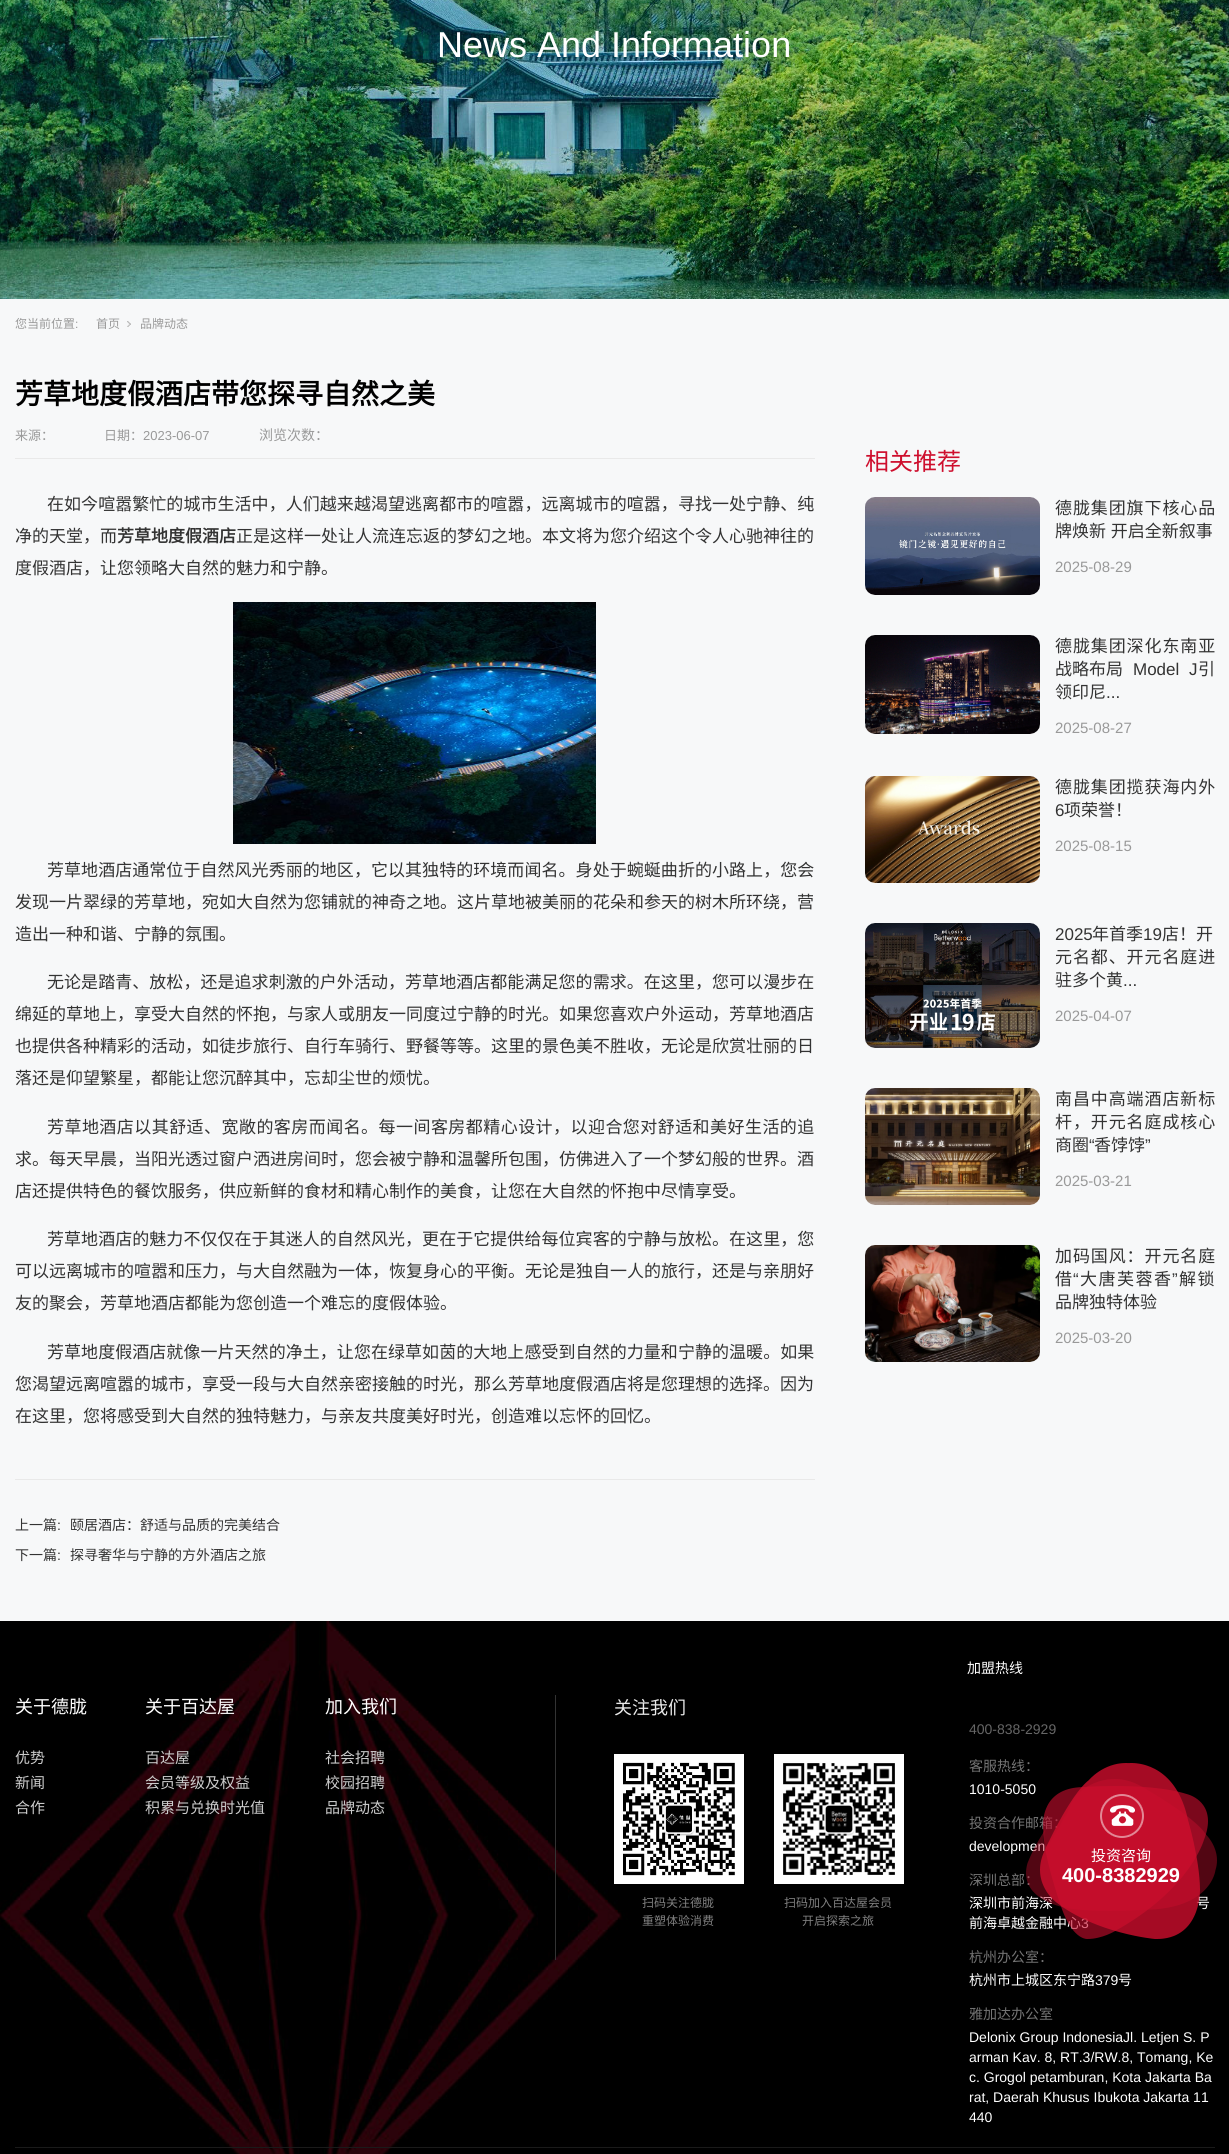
#include <cairo/cairo.h>
#include <math.h>
#include <stddef.h>


static void draw_spaced(cairo_t *cr, double x, double y, const char *s, double letter, double word) {
  cairo_move_to(cr, x, y);
  while (*s) {
    char ch[5] = {0};
    int n = 0;
    do ch[n++] = *s++; while ((*s & 0xC0) == 0x80);
    cairo_show_text(cr, ch);
    cairo_rel_move_to(cr, letter + word * (*ch == ' '), 0);
  }
}

static void draw_image(cairo_t *cr, const char *path, double x, double y, double w, double h) {
  cairo_surface_t *image = cairo_image_surface_create_from_png(path);
  cairo_save(cr);
  cairo_set_source_surface(cr, image, x, y);
  cairo_rectangle(cr, x, y, w, h);
  cairo_fill(cr);
  cairo_restore(cr);
  cairo_surface_destroy(image);
}

static void draw(cairo_t *cr) {
  cairo_set_source_rgb(cr, 1, 1, 1);
  cairo_paint(cr);
  draw_image(cr, "images/1.png", 0, 0, 1229, 299);
  cairo_set_source_rgb(cr, 247 / 255.0, 248 / 255.0, 249 / 255.0);
  cairo_rectangle(cr, 0, 299, 1229, 1322);
  cairo_fill(cr);
  draw_image(cr, "images/2.png", 127, 321, 4, 6);
  cairo_set_source_rgb(cr, 233 / 255.0, 233 / 255.0, 233 / 255.0);
  cairo_rectangle(cr, 15, 458, 800, 1);
  cairo_fill(cr);
  cairo_rectangle(cr, 15, 1479, 800, 1);
  cairo_fill(cr);
  draw_image(cr, "images/3.png", 233, 602, 363, 242);
  draw_image(cr, "images/4.png", 865, 497, 175, 98);
  draw_image(cr, "images/5.png", 865, 635, 175, 99);
  draw_image(cr, "images/6.png", 865, 776, 175, 107);
  draw_image(cr, "images/7.png", 865, 923, 175, 125);
  draw_image(cr, "images/8.png", 865, 1088, 175, 117);
  draw_image(cr, "images/9.png", 865, 1245, 175, 117);
  draw_image(cr, "images/10.png", 0, 1621, 1229, 533);
  cairo_set_source_rgb(cr, 51 / 255.0, 51 / 255.0, 51 / 255.0);
  cairo_rectangle(cr, 555, 1695, 1, 265);
  cairo_fill(cr);
  draw_image(cr, "images/11.png", 614, 1754, 130, 130);
  draw_image(cr, "images/12.png", 774, 1754, 130, 130);
  cairo_set_source_rgb(cr, 26 / 255.0, 26 / 255.0, 26 / 255.0);
  cairo_rectangle(cr, 15, 2147, 1200, 1);
  cairo_fill(cr);
  cairo_select_font_face(cr, "Liberation Sans", CAIRO_FONT_SLANT_NORMAL, CAIRO_FONT_WEIGHT_NORMAL);
  cairo_set_font_size(cr, 36);
  cairo_set_source_rgb(cr, 1, 1, 1);
  cairo_move_to(cr, 437, 57);
  cairo_show_text(cr, "News And Information");
  cairo_select_font_face(cr, "Noto Sans CJK SC", CAIRO_FONT_SLANT_NORMAL, CAIRO_FONT_WEIGHT_NORMAL);
  cairo_set_font_size(cr, 12);
  cairo_set_source_rgb(cr, 153 / 255.0, 153 / 255.0, 153 / 255.0);
  cairo_move_to(cr, 15, 328);
  cairo_show_text(cr, "您当前位置");
  cairo_select_font_face(cr, "Liberation Sans", CAIRO_FONT_SLANT_NORMAL, CAIRO_FONT_WEIGHT_NORMAL);
  cairo_move_to(cr, 75, 328);
  cairo_show_text(cr, ":");
  cairo_select_font_face(cr, "Noto Sans CJK SC", CAIRO_FONT_SLANT_NORMAL, CAIRO_FONT_WEIGHT_NORMAL);
  cairo_move_to(cr, 96, 328);
  cairo_show_text(cr, "首页");
  cairo_move_to(cr, 140, 328);
  cairo_show_text(cr, "品牌动态");
  cairo_select_font_face(cr, "Noto Sans CJK SC", CAIRO_FONT_SLANT_NORMAL, CAIRO_FONT_WEIGHT_BOLD);
  cairo_set_font_size(cr, 28);
  cairo_set_source_rgb(cr, 0, 0, 0);
  cairo_move_to(cr, 15, 404);
  cairo_show_text(cr, "芳草地度假酒店带您探寻自然之美");
  cairo_select_font_face(cr, "Noto Sans CJK SC", CAIRO_FONT_SLANT_NORMAL, CAIRO_FONT_WEIGHT_NORMAL);
  cairo_set_font_size(cr, 13);
  cairo_set_source_rgb(cr, 153 / 255.0, 153 / 255.0, 153 / 255.0);
  cairo_move_to(cr, 15, 440);
  cairo_show_text(cr, "来源：");
  cairo_move_to(cr, 104, 440);
  cairo_show_text(cr, "日期：");
  cairo_select_font_face(cr, "Liberation Sans", CAIRO_FONT_SLANT_NORMAL, CAIRO_FONT_WEIGHT_NORMAL);
  cairo_move_to(cr, 143, 440);
  cairo_show_text(cr, "2023-06-07");
  cairo_select_font_face(cr, "Noto Sans CJK SC", CAIRO_FONT_SLANT_NORMAL, CAIRO_FONT_WEIGHT_NORMAL);
  cairo_set_font_size(cr, 14);
  cairo_move_to(cr, 259, 440);
  cairo_show_text(cr, "浏览次数：");
  cairo_set_font_size(cr, 17);
  cairo_set_source_rgb(cr, 51 / 255.0, 51 / 255.0, 51 / 255.0);
  draw_spaced(cr, 47, 510, "在如今喧嚣繁忙的城市生活中，人们越来越渴望逃离都市的喧嚣，远离城市的喧嚣，寻找一处宁静、纯", 0.05, 0);
  cairo_move_to(cr, 15, 542);
  cairo_show_text(cr, "净的天堂，而");
  cairo_select_font_face(cr, "Noto Sans CJK SC", CAIRO_FONT_SLANT_NORMAL, CAIRO_FONT_WEIGHT_BOLD);
  cairo_move_to(cr, 117, 542);
  cairo_show_text(cr, "芳草地度假酒店");
  cairo_select_font_face(cr, "Noto Sans CJK SC", CAIRO_FONT_SLANT_NORMAL, CAIRO_FONT_WEIGHT_NORMAL);
  cairo_move_to(cr, 236, 542);
  cairo_show_text(cr, "正是这样一处让人流连忘返的梦幻之地。本文将为您介绍这个令人心驰神往的");
  cairo_move_to(cr, 15, 574);
  cairo_show_text(cr, "度假酒店，让您领略大自然的魅力和宁静。");
  draw_spaced(cr, 47, 876, "芳草地酒店通常位于自然风光秀丽的地区，它以其独特的环境而闻名。身处于蜿蜒曲折的小路上，您会", 0.05, 0);
  cairo_move_to(cr, 15, 908);
  cairo_show_text(cr, "发现一片翠绿的芳草地，宛如大自然为您铺就的神奇之地。这片草地被美丽的花朵和参天的树木所环绕，营");
  cairo_move_to(cr, 15, 940);
  cairo_show_text(cr, "造出一种和谐、宁静的氛围。");
  draw_spaced(cr, 47, 988, "无论是踏青、放松，还是追求刺激的户外活动，芳草地酒店都能满足您的需求。在这里，您可以漫步在", 0.05, 0);
  cairo_move_to(cr, 15, 1020);
  cairo_show_text(cr, "绵延的草地上，享受大自然的怀抱，与家人或朋友一同度过宁静的时光。如果您喜欢户外运动，芳草地酒店");
  cairo_move_to(cr, 15, 1052);
  cairo_show_text(cr, "也提供各种精彩的活动，如徒步旅行、自行车骑行、野餐等等。这里的景色美不胜收，无论是欣赏壮丽的日");
  cairo_move_to(cr, 15, 1084);
  cairo_show_text(cr, "落还是仰望繁星，都能让您沉醉其中，忘却尘世的烦忧。");
  draw_spaced(cr, 47, 1133, "芳草地酒店以其舒适、宽敞的客房而闻名。每一间客房都精心设计，以迎合您对舒适和美好生活的追", 0.45, 0);
  cairo_move_to(cr, 15, 1165);
  cairo_show_text(cr, "求。每天早晨，当阳光透过窗户洒进房间时，您会被宁静和温馨所包围，仿佛进入了一个梦幻般的世界。酒");
  cairo_move_to(cr, 15, 1197);
  cairo_show_text(cr, "店还提供特色的餐饮服务，供应新鲜的食材和精心制作的美食，让您在大自然的怀抱中尽情享受。");
  draw_spaced(cr, 47, 1245, "芳草地酒店的魅力不仅仅在于其迷人的自然风光，更在于它提供给每位宾客的宁静与放松。在这里，您", 0.05, 0);
  cairo_move_to(cr, 15, 1277);
  cairo_show_text(cr, "可以远离城市的喧嚣和压力，与大自然融为一体，恢复身心的平衡。无论是独自一人的旅行，还是与亲朋好");
  cairo_move_to(cr, 15, 1309);
  cairo_show_text(cr, "友的聚会，芳草地酒店都能为您创造一个难忘的度假体验。");
  draw_spaced(cr, 47, 1358, "芳草地度假酒店就像一片天然的净土，让您在绿草如茵的大地上感受到自然的力量和宁静的温暖。如果", 0.05, 0);
  cairo_move_to(cr, 15, 1390);
  cairo_show_text(cr, "您渴望远离喧嚣的城市，享受一段与大自然亲密接触的时光，那么芳草地度假酒店将是您理想的选择。因为");
  cairo_move_to(cr, 15, 1422);
  cairo_show_text(cr, "在这里，您将感受到大自然的独特魅力，与亲友共度美好时光，创造难以忘怀的回忆。");
  cairo_set_font_size(cr, 14);
  cairo_move_to(cr, 15, 1530);
  cairo_show_text(cr, "上一篇");
  cairo_select_font_face(cr, "Liberation Sans", CAIRO_FONT_SLANT_NORMAL, CAIRO_FONT_WEIGHT_NORMAL);
  cairo_move_to(cr, 57, 1530);
  cairo_show_text(cr, ":");
  cairo_select_font_face(cr, "Noto Sans CJK SC", CAIRO_FONT_SLANT_NORMAL, CAIRO_FONT_WEIGHT_NORMAL);
  cairo_move_to(cr, 70, 1530);
  cairo_show_text(cr, "颐居酒店：舒适与品质的完美结合");
  cairo_move_to(cr, 15, 1560);
  cairo_show_text(cr, "下一篇");
  cairo_select_font_face(cr, "Liberation Sans", CAIRO_FONT_SLANT_NORMAL, CAIRO_FONT_WEIGHT_NORMAL);
  cairo_move_to(cr, 57, 1560);
  cairo_show_text(cr, ":");
  cairo_select_font_face(cr, "Noto Sans CJK SC", CAIRO_FONT_SLANT_NORMAL, CAIRO_FONT_WEIGHT_NORMAL);
  cairo_move_to(cr, 70, 1560);
  cairo_show_text(cr, "探寻奢华与宁静的方外酒店之旅");
  cairo_set_font_size(cr, 24);
  cairo_set_source_rgb(cr, 206 / 255.0, 14 / 255.0, 45 / 255.0);
  cairo_move_to(cr, 865, 470);
  cairo_show_text(cr, "相关推荐");
  cairo_set_font_size(cr, 17);
  cairo_set_source_rgb(cr, 51 / 255.0, 51 / 255.0, 51 / 255.0);
  draw_spaced(cr, 1055, 514, "德胧集团旗下核心品", 0.9, 0);
  draw_spaced(cr, 1055, 537, "牌焕新 开启全新叙事", 0, 1);
  cairo_select_font_face(cr, "Liberation Sans", CAIRO_FONT_SLANT_NORMAL, CAIRO_FONT_WEIGHT_NORMAL);
  cairo_set_font_size(cr, 15);
  cairo_set_source_rgb(cr, 153 / 255.0, 153 / 255.0, 153 / 255.0);
  cairo_move_to(cr, 1055, 572);
  cairo_show_text(cr, "2025-08-29");
  cairo_select_font_face(cr, "Noto Sans CJK SC", CAIRO_FONT_SLANT_NORMAL, CAIRO_FONT_WEIGHT_NORMAL);
  cairo_set_font_size(cr, 17);
  cairo_set_source_rgb(cr, 51 / 255.0, 51 / 255.0, 51 / 255.0);
  draw_spaced(cr, 1055, 652, "德胧集团深化东南亚", 0.9, 0);
  cairo_move_to(cr, 1055, 675);
  cairo_show_text(cr, "战略布局");
  cairo_select_font_face(cr, "Liberation Sans", CAIRO_FONT_SLANT_NORMAL, CAIRO_FONT_WEIGHT_NORMAL);
  draw_spaced(cr, 1133, 675, "Model J", 0, 5);
  cairo_select_font_face(cr, "Noto Sans CJK SC", CAIRO_FONT_SLANT_NORMAL, CAIRO_FONT_WEIGHT_NORMAL);
  cairo_move_to(cr, 1198, 675);
  cairo_show_text(cr, "引");
  cairo_move_to(cr, 1055, 698);
  cairo_show_text(cr, "领印尼");
  cairo_select_font_face(cr, "Liberation Sans", CAIRO_FONT_SLANT_NORMAL, CAIRO_FONT_WEIGHT_NORMAL);
  cairo_move_to(cr, 1106, 698);
  cairo_show_text(cr, "...");
  cairo_set_font_size(cr, 15);
  cairo_set_source_rgb(cr, 153 / 255.0, 153 / 255.0, 153 / 255.0);
  cairo_move_to(cr, 1055, 733);
  cairo_show_text(cr, "2025-08-27");
  cairo_select_font_face(cr, "Noto Sans CJK SC", CAIRO_FONT_SLANT_NORMAL, CAIRO_FONT_WEIGHT_NORMAL);
  cairo_set_font_size(cr, 17);
  cairo_set_source_rgb(cr, 51 / 255.0, 51 / 255.0, 51 / 255.0);
  draw_spaced(cr, 1055, 793, "德胧集团揽获海内外", 0.9, 0);
  cairo_select_font_face(cr, "Liberation Sans", CAIRO_FONT_SLANT_NORMAL, CAIRO_FONT_WEIGHT_NORMAL);
  cairo_move_to(cr, 1055, 816);
  cairo_show_text(cr, "6");
  cairo_select_font_face(cr, "Noto Sans CJK SC", CAIRO_FONT_SLANT_NORMAL, CAIRO_FONT_WEIGHT_NORMAL);
  cairo_move_to(cr, 1064, 816);
  cairo_show_text(cr, "项荣誉！");
  cairo_select_font_face(cr, "Liberation Sans", CAIRO_FONT_SLANT_NORMAL, CAIRO_FONT_WEIGHT_NORMAL);
  cairo_set_font_size(cr, 15);
  cairo_set_source_rgb(cr, 153 / 255.0, 153 / 255.0, 153 / 255.0);
  cairo_move_to(cr, 1055, 851);
  cairo_show_text(cr, "2025-08-15");
  cairo_set_font_size(cr, 17);
  cairo_set_source_rgb(cr, 51 / 255.0, 51 / 255.0, 51 / 255.0);
  cairo_move_to(cr, 1055, 940);
  cairo_show_text(cr, "2025");
  cairo_select_font_face(cr, "Noto Sans CJK SC", CAIRO_FONT_SLANT_NORMAL, CAIRO_FONT_WEIGHT_NORMAL);
  cairo_move_to(cr, 1092, 940);
  cairo_show_text(cr, "年首季");
  cairo_select_font_face(cr, "Liberation Sans", CAIRO_FONT_SLANT_NORMAL, CAIRO_FONT_WEIGHT_NORMAL);
  cairo_move_to(cr, 1143, 940);
  cairo_show_text(cr, "19");
  cairo_select_font_face(cr, "Noto Sans CJK SC", CAIRO_FONT_SLANT_NORMAL, CAIRO_FONT_WEIGHT_NORMAL);
  cairo_move_to(cr, 1162, 940);
  cairo_show_text(cr, "店！开");
  draw_spaced(cr, 1055, 963, "元名都、开元名庭进", 0.9, 0);
  cairo_move_to(cr, 1055, 986);
  cairo_show_text(cr, "驻多个黄");
  cairo_select_font_face(cr, "Liberation Sans", CAIRO_FONT_SLANT_NORMAL, CAIRO_FONT_WEIGHT_NORMAL);
  cairo_move_to(cr, 1123, 986);
  cairo_show_text(cr, "...");
  cairo_set_font_size(cr, 15);
  cairo_set_source_rgb(cr, 153 / 255.0, 153 / 255.0, 153 / 255.0);
  cairo_move_to(cr, 1055, 1021);
  cairo_show_text(cr, "2025-04-07");
  cairo_select_font_face(cr, "Noto Sans CJK SC", CAIRO_FONT_SLANT_NORMAL, CAIRO_FONT_WEIGHT_NORMAL);
  cairo_set_font_size(cr, 17);
  cairo_set_source_rgb(cr, 51 / 255.0, 51 / 255.0, 51 / 255.0);
  draw_spaced(cr, 1055, 1105, "南昌中高端酒店新标", 0.9, 0);
  draw_spaced(cr, 1055, 1128, "杆，开元名庭成核心", 0.9, 0);
  cairo_move_to(cr, 1055, 1151);
  cairo_show_text(cr, "商圈");
  cairo_select_font_face(cr, "Liberation Sans", CAIRO_FONT_SLANT_NORMAL, CAIRO_FONT_WEIGHT_NORMAL);
  cairo_move_to(cr, 1089, 1151);
  cairo_show_text(cr, "“");
  cairo_select_font_face(cr, "Noto Sans CJK SC", CAIRO_FONT_SLANT_NORMAL, CAIRO_FONT_WEIGHT_NORMAL);
  cairo_move_to(cr, 1094, 1151);
  cairo_show_text(cr, "香饽饽");
  cairo_select_font_face(cr, "Liberation Sans", CAIRO_FONT_SLANT_NORMAL, CAIRO_FONT_WEIGHT_NORMAL);
  cairo_move_to(cr, 1145, 1151);
  cairo_show_text(cr, "”");
  cairo_set_font_size(cr, 15);
  cairo_set_source_rgb(cr, 153 / 255.0, 153 / 255.0, 153 / 255.0);
  cairo_move_to(cr, 1055, 1186);
  cairo_show_text(cr, "2025-03-21");
  cairo_select_font_face(cr, "Noto Sans CJK SC", CAIRO_FONT_SLANT_NORMAL, CAIRO_FONT_WEIGHT_NORMAL);
  cairo_set_font_size(cr, 17);
  cairo_set_source_rgb(cr, 51 / 255.0, 51 / 255.0, 51 / 255.0);
  draw_spaced(cr, 1055, 1262, "加码国风：开元名庭", 0.9, 0);
  draw_spaced(cr, 1055, 1285, "借", 1.5, 0);
  cairo_select_font_face(cr, "Liberation Sans", CAIRO_FONT_SLANT_NORMAL, CAIRO_FONT_WEIGHT_NORMAL);
  draw_spaced(cr, 1073, 1285, "“", 1.5, 0);
  cairo_select_font_face(cr, "Noto Sans CJK SC", CAIRO_FONT_SLANT_NORMAL, CAIRO_FONT_WEIGHT_NORMAL);
  draw_spaced(cr, 1080, 1285, "大唐芙蓉香", 1.5, 0);
  cairo_select_font_face(cr, "Liberation Sans", CAIRO_FONT_SLANT_NORMAL, CAIRO_FONT_WEIGHT_NORMAL);
  draw_spaced(cr, 1172, 1285, "”", 1.5, 0);
  cairo_select_font_face(cr, "Noto Sans CJK SC", CAIRO_FONT_SLANT_NORMAL, CAIRO_FONT_WEIGHT_NORMAL);
  draw_spaced(cr, 1179, 1285, "解锁", 1.5, 0);
  cairo_move_to(cr, 1055, 1308);
  cairo_show_text(cr, "品牌独特体验");
  cairo_select_font_face(cr, "Liberation Sans", CAIRO_FONT_SLANT_NORMAL, CAIRO_FONT_WEIGHT_NORMAL);
  cairo_set_font_size(cr, 15);
  cairo_set_source_rgb(cr, 153 / 255.0, 153 / 255.0, 153 / 255.0);
  cairo_move_to(cr, 1055, 1343);
  cairo_show_text(cr, "2025-03-20");
  cairo_select_font_face(cr, "Noto Sans CJK SC", CAIRO_FONT_SLANT_NORMAL, CAIRO_FONT_WEIGHT_NORMAL);
  cairo_set_font_size(cr, 18);
  cairo_set_source_rgb(cr, 1, 1, 1);
  cairo_move_to(cr, 15, 1713);
  cairo_show_text(cr, "关于德胧");
  cairo_set_font_size(cr, 15);
  cairo_set_source_rgb(cr, 204 / 255.0, 204 / 255.0, 204 / 255.0);
  cairo_move_to(cr, 15, 1763);
  cairo_show_text(cr, "优势");
  cairo_move_to(cr, 15, 1788);
  cairo_show_text(cr, "新闻");
  cairo_move_to(cr, 15, 1813);
  cairo_show_text(cr, "合作");
  cairo_set_font_size(cr, 18);
  cairo_set_source_rgb(cr, 1, 1, 1);
  cairo_move_to(cr, 145, 1713);
  cairo_show_text(cr, "关于百达屋");
  cairo_set_font_size(cr, 15);
  cairo_set_source_rgb(cr, 204 / 255.0, 204 / 255.0, 204 / 255.0);
  cairo_move_to(cr, 145, 1763);
  cairo_show_text(cr, "百达屋");
  cairo_move_to(cr, 145, 1788);
  cairo_show_text(cr, "会员等级及权益");
  cairo_move_to(cr, 145, 1813);
  cairo_show_text(cr, "积累与兑换时光值");
  cairo_set_font_size(cr, 18);
  cairo_set_source_rgb(cr, 1, 1, 1);
  cairo_move_to(cr, 325, 1713);
  cairo_show_text(cr, "加入我们");
  cairo_set_font_size(cr, 15);
  cairo_set_source_rgb(cr, 204 / 255.0, 204 / 255.0, 204 / 255.0);
  cairo_move_to(cr, 325, 1763);
  cairo_show_text(cr, "社会招聘");
  cairo_move_to(cr, 325, 1788);
  cairo_show_text(cr, "校园招聘");
  cairo_move_to(cr, 325, 1813);
  cairo_show_text(cr, "品牌动态");
  cairo_set_font_size(cr, 18);
  cairo_set_source_rgb(cr, 233 / 255.0, 233 / 255.0, 233 / 255.0);
  cairo_move_to(cr, 614, 1714);
  cairo_show_text(cr, "关注我们");
  cairo_set_font_size(cr, 12);
  cairo_set_source_rgb(cr, 128 / 255.0, 128 / 255.0, 128 / 255.0);
  cairo_move_to(cr, 642, 1907);
  cairo_show_text(cr, "扫码关注德胧");
  cairo_move_to(cr, 642, 1925);
  cairo_show_text(cr, "重塑体验消费");
  cairo_move_to(cr, 784, 1907);
  cairo_show_text(cr, "扫码加入百达屋会员");
  cairo_move_to(cr, 802, 1925);
  cairo_show_text(cr, "开启探索之旅");
  cairo_set_font_size(cr, 14);
  cairo_set_source_rgb(cr, 1, 1, 1);
  cairo_move_to(cr, 967, 1673);
  cairo_show_text(cr, "加盟热线");
  cairo_select_font_face(cr, "Liberation Sans", CAIRO_FONT_SLANT_NORMAL, CAIRO_FONT_WEIGHT_NORMAL);
  cairo_set_source_rgb(cr, 102 / 255.0, 102 / 255.0, 102 / 255.0);
  cairo_move_to(cr, 969, 1734);
  cairo_show_text(cr, "400-838-2929");
  cairo_select_font_face(cr, "Noto Sans CJK SC", CAIRO_FONT_SLANT_NORMAL, CAIRO_FONT_WEIGHT_NORMAL);
  cairo_set_source_rgb(cr, 116 / 255.0, 116 / 255.0, 116 / 255.0);
  cairo_move_to(cr, 969, 1771);
  cairo_show_text(cr, "客服热线：");
  cairo_select_font_face(cr, "Liberation Sans", CAIRO_FONT_SLANT_NORMAL, CAIRO_FONT_WEIGHT_NORMAL);
  cairo_set_source_rgb(cr, 1, 1, 1);
  cairo_move_to(cr, 969, 1794);
  cairo_show_text(cr, "1010-5050");
  cairo_select_font_face(cr, "Noto Sans CJK SC", CAIRO_FONT_SLANT_NORMAL, CAIRO_FONT_WEIGHT_NORMAL);
  cairo_set_source_rgb(cr, 116 / 255.0, 116 / 255.0, 116 / 255.0);
  cairo_move_to(cr, 969, 1828);
  cairo_show_text(cr, "投资合作邮箱：");
  cairo_select_font_face(cr, "Liberation Sans", CAIRO_FONT_SLANT_NORMAL, CAIRO_FONT_WEIGHT_NORMAL);
  cairo_set_source_rgb(cr, 1, 1, 1);
  cairo_move_to(cr, 969, 1851);
  cairo_show_text(cr, "developmen");
  cairo_select_font_face(cr, "Noto Sans CJK SC", CAIRO_FONT_SLANT_NORMAL, CAIRO_FONT_WEIGHT_NORMAL);
  cairo_set_source_rgb(cr, 116 / 255.0, 116 / 255.0, 116 / 255.0);
  cairo_move_to(cr, 969, 1885);
  cairo_show_text(cr, "深圳总部：");
  cairo_set_source_rgb(cr, 1, 1, 1);
  cairo_move_to(cr, 969, 1908);
  cairo_show_text(cr, "深圳市前海深");
  cairo_move_to(cr, 1196, 1908);
  cairo_show_text(cr, "号");
  cairo_move_to(cr, 969, 1928);
  cairo_show_text(cr, "前海卓越金融中心");
  cairo_select_font_face(cr, "Liberation Sans", CAIRO_FONT_SLANT_NORMAL, CAIRO_FONT_WEIGHT_NORMAL);
  cairo_move_to(cr, 1081, 1928);
  cairo_show_text(cr, "3");
  cairo_select_font_face(cr, "Noto Sans CJK SC", CAIRO_FONT_SLANT_NORMAL, CAIRO_FONT_WEIGHT_NORMAL);
  cairo_set_source_rgb(cr, 116 / 255.0, 116 / 255.0, 116 / 255.0);
  cairo_move_to(cr, 969, 1962);
  cairo_show_text(cr, "杭州办公室：");
  cairo_set_source_rgb(cr, 1, 1, 1);
  cairo_move_to(cr, 969, 1985);
  cairo_show_text(cr, "杭州市上城区东宁路");
  cairo_select_font_face(cr, "Liberation Sans", CAIRO_FONT_SLANT_NORMAL, CAIRO_FONT_WEIGHT_NORMAL);
  cairo_move_to(cr, 1095, 1985);
  cairo_show_text(cr, "379");
  cairo_select_font_face(cr, "Noto Sans CJK SC", CAIRO_FONT_SLANT_NORMAL, CAIRO_FONT_WEIGHT_NORMAL);
  cairo_move_to(cr, 1118, 1985);
  cairo_show_text(cr, "号");
  cairo_set_source_rgb(cr, 116 / 255.0, 116 / 255.0, 116 / 255.0);
  cairo_move_to(cr, 969, 2019);
  cairo_show_text(cr, "雅加达办公室");
  cairo_select_font_face(cr, "Liberation Sans", CAIRO_FONT_SLANT_NORMAL, CAIRO_FONT_WEIGHT_NORMAL);
  cairo_set_source_rgb(cr, 1, 1, 1);
  cairo_move_to(cr, 969, 2042);
  cairo_show_text(cr, "Delonix Group IndonesiaJl. Letjen S. P");
  cairo_move_to(cr, 969, 2062);
  cairo_show_text(cr, "arman Kav. 8, RT.3/RW.8, Tomang, Ke");
  cairo_move_to(cr, 969, 2082);
  cairo_show_text(cr, "c. Grogol petamburan, Kota Jakarta Ba");
  cairo_move_to(cr, 969, 2102);
  cairo_show_text(cr, "rat, Daerah Khusus Ibukota Jakarta 11");
  cairo_move_to(cr, 969, 2122);
  cairo_show_text(cr, "440");
  draw_image(cr, "images/13.png", 1026, 1763, 191, 176);
  cairo_select_font_face(cr, "Noto Sans CJK SC", CAIRO_FONT_SLANT_NORMAL, CAIRO_FONT_WEIGHT_NORMAL);
  cairo_set_font_size(cr, 15);
  cairo_move_to(cr, 1091, 1861);
  cairo_show_text(cr, "投资咨询");
  cairo_select_font_face(cr, "Liberation Sans", CAIRO_FONT_SLANT_NORMAL, CAIRO_FONT_WEIGHT_BOLD);
  cairo_set_font_size(cr, 20);
  cairo_move_to(cr, 1062, 1882);
  cairo_show_text(cr, "400-8382929");
}

int main(void) {
  cairo_surface_t *surface = cairo_image_surface_create(CAIRO_FORMAT_RGB24, 1229, 2154);
  cairo_t *cr = cairo_create(surface);
  cairo_font_options_t *options = cairo_font_options_create();
  cairo_font_options_set_hint_metrics(options, CAIRO_HINT_METRICS_OFF);
  cairo_font_options_set_hint_style(options, CAIRO_HINT_STYLE_NONE);
  cairo_set_font_options(cr, options);
  cairo_set_miter_limit(cr, 4);
  draw(cr);
  cairo_surface_write_to_png(surface, "out.png");
  cairo_font_options_destroy(options);
  cairo_destroy(cr);
  cairo_surface_destroy(surface);
  return 0;
}
